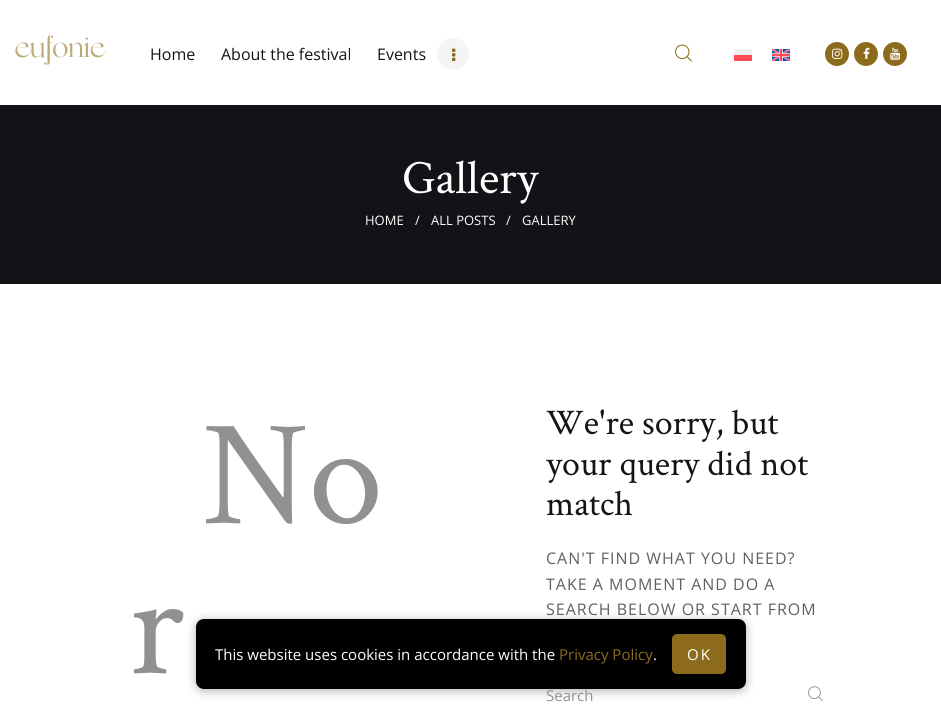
#include <cairo/cairo.h>
#include <math.h>
#include <stddef.h>


static void draw_spaced(cairo_t *cr, double x, double y, const char *s, double letter, double word) {
  cairo_move_to(cr, x, y);
  while (*s) {
    char ch[5] = {0};
    int n = 0;
    do ch[n++] = *s++; while ((*s & 0xC0) == 0x80);
    cairo_show_text(cr, ch);
    cairo_rel_move_to(cr, letter + word * (*ch == ' '), 0);
  }
}

static void rounded_rect(cairo_t *cr, double x, double y, double w, double h, double r) {
  cairo_new_sub_path(cr);
  cairo_arc(cr, x + w - r, y + h - r, r, 0, M_PI / 2);
  cairo_arc(cr, x + r, y + h - r, r, M_PI / 2, M_PI);
  cairo_arc(cr, x + r, y + r, r, M_PI, 1.5 * M_PI);
  cairo_arc(cr, x + w - r, y + r, r, 1.5 * M_PI, 2 * M_PI);
  cairo_close_path(cr);
}

static void draw_shadow(cairo_t *cr, double x, double y, double w, double h, double r, double blur, double alpha) {
  cairo_push_group_with_content(cr, CAIRO_CONTENT_ALPHA);
  cairo_set_operator(cr, CAIRO_OPERATOR_SOURCE);
  for (int i = 15; i >= -15 && fmin(w, h) + blur * i / 3 > 0; i -= 2) {
    double e = blur * i / 6;
    cairo_set_source_rgba(cr, 0, 0, 0, alpha * erfc((i - 1) / 8.5) / 2);
    rounded_rect(cr, x - e, y - e, w + 2 * e, h + 2 * e, fmax(0, fmin(r + e + blur * .6, fmin(w, h) / 2 + e)));
    cairo_fill(cr);
  }
  cairo_pattern_t *soft = cairo_pop_group(cr);
  cairo_mask(cr, soft);
  cairo_pattern_destroy(soft);
}

static void draw_image(cairo_t *cr, const char *path, double x, double y, double w, double h) {
  cairo_surface_t *image = cairo_image_surface_create_from_png(path);
  cairo_save(cr);
  cairo_set_source_surface(cr, image, x, y);
  cairo_rectangle(cr, x, y, w, h);
  cairo_fill(cr);
  cairo_restore(cr);
  cairo_surface_destroy(image);
}

static void draw(cairo_t *cr) {
  cairo_set_source_rgb(cr, 1, 1, 1);
  cairo_paint(cr);
  draw_image(cr, "images/1.png", 15, 35, 92, 30);
  cairo_set_source_rgb(cr, 243 / 255.0, 245 / 255.0, 247 / 255.0);
  cairo_arc(cr, 453, 54, 16, 0, 2 * M_PI);
  cairo_fill(cr);
  draw_image(cr, "images/2.png", 452, 48, 4, 14);
  draw_image(cr, "images/3.png", 675, 44, 17, 18);
  cairo_set_source_rgb(cr, 240 / 255.0, 240 / 255.0, 240 / 255.0);
  cairo_rectangle(cr, 734, 49, 18, 6);
  cairo_fill(cr);
  cairo_set_source_rgb(cr, 1, 75 / 255.0, 85 / 255.0);
  cairo_rectangle(cr, 734, 55, 18, 6);
  cairo_fill(cr);
  draw_image(cr, "images/4.png", 772, 49, 18, 12);
  cairo_set_source_rgb(cr, 140 / 255.0, 108 / 255.0, 28 / 255.0);
  cairo_arc(cr, 837, 54, 12, 0, 2 * M_PI);
  cairo_fill(cr);
  draw_image(cr, "images/5.png", 832, 48, 11, 11);
  cairo_arc(cr, 866, 54, 12, 0, 2 * M_PI);
  cairo_fill(cr);
  draw_image(cr, "images/6.png", 863, 47, 7, 12);
  cairo_arc(cr, 895, 54, 12, 0, 2 * M_PI);
  cairo_fill(cr);
  draw_image(cr, "images/7.png", 890, 47, 11, 13);
  cairo_set_source_rgb(cr, 19 / 255.0, 18 / 255.0, 23 / 255.0);
  cairo_rectangle(cr, 0, 105, 941, 179);
  cairo_fill(cr);
  draw_image(cr, "images/8.png", 808, 686, 15, 16);
  cairo_set_source_rgb(cr, 0, 0, 0);
  draw_shadow(cr, 196, 621, 550, 70, 8, 5, 0.3);
  cairo_set_source_rgb(cr, 0, 0, 0);
  rounded_rect(cr, 196, 619, 550, 70, 8);
  cairo_fill(cr);
  cairo_set_source_rgb(cr, 140 / 255.0, 108 / 255.0, 28 / 255.0);
  rounded_rect(cr, 672, 634, 54, 40, 5);
  cairo_fill(cr);
  cairo_select_font_face(cr, "Open Sans", CAIRO_FONT_SLANT_NORMAL, CAIRO_FONT_WEIGHT_NORMAL);
  cairo_set_font_size(cr, 16);
  cairo_set_source_rgb(cr, 21 / 255.0, 20 / 255.0, 20 / 255.0);
  cairo_move_to(cr, 150, 60);
  cairo_show_text(cr, "Home");
  cairo_move_to(cr, 221, 60);
  cairo_show_text(cr, "About the festival");
  cairo_move_to(cr, 377, 60);
  cairo_show_text(cr, "Events");
  cairo_select_font_face(cr, "Crimson Text", CAIRO_FONT_SLANT_NORMAL, CAIRO_FONT_WEIGHT_NORMAL);
  cairo_set_font_size(cr, 48);
  cairo_set_source_rgb(cr, 1, 1, 1);
  cairo_move_to(cr, 402, 193);
  cairo_show_text(cr, "Gallery");
  cairo_select_font_face(cr, "Open Sans", CAIRO_FONT_SLANT_NORMAL, CAIRO_FONT_WEIGHT_NORMAL);
  cairo_set_font_size(cr, 13);
  cairo_move_to(cr, 365, 225);
  cairo_show_text(cr, "HOME");
  cairo_move_to(cr, 415, 225);
  cairo_show_text(cr, "/");
  cairo_move_to(cr, 431, 225);
  cairo_show_text(cr, "ALL POSTS");
  cairo_move_to(cr, 506, 225);
  cairo_show_text(cr, "/");
  cairo_move_to(cr, 522, 225);
  cairo_show_text(cr, "GALLERY");
  cairo_select_font_face(cr, "Crimson Text", CAIRO_FONT_SLANT_NORMAL, CAIRO_FONT_WEIGHT_NORMAL);
  cairo_set_font_size(cr, 150);
  cairo_set_source_rgb(cr, 145 / 255.0, 145 / 255.0, 145 / 255.0);
  cairo_move_to(cr, 203, 523);
  cairo_show_text(cr, "No");
  cairo_move_to(cr, 129, 673);
  cairo_show_text(cr, "r");
  cairo_set_font_size(cr, 36);
  cairo_set_source_rgb(cr, 21 / 255.0, 20 / 255.0, 20 / 255.0);
  cairo_move_to(cr, 546, 434);
  cairo_show_text(cr, "We're sorry, but");
  cairo_move_to(cr, 546, 475);
  cairo_show_text(cr, "your query did not");
  cairo_move_to(cr, 546, 515);
  cairo_show_text(cr, "match");
  cairo_select_font_face(cr, "Open Sans", CAIRO_FONT_SLANT_NORMAL, CAIRO_FONT_WEIGHT_NORMAL);
  cairo_set_font_size(cr, 16);
  cairo_set_source_rgb(cr, 96 / 255.0, 96 / 255.0, 96 / 255.0);
  draw_spaced(cr, 546, 564, "CAN'T FIND WHAT YOU NEED?", 1, 0);
  draw_spaced(cr, 546, 590, "TAKE A MOMENT AND DO A", 1, 0);
  draw_spaced(cr, 546, 615, "SEARCH BELOW OR START FROM", 1, 0);
  cairo_set_font_size(cr, 15);
  cairo_set_source_rgb(cr, 145 / 255.0, 145 / 255.0, 145 / 255.0);
  cairo_move_to(cr, 546, 701);
  cairo_show_text(cr, "Search");
  cairo_set_source_rgb(cr, 1, 1, 1);
  cairo_move_to(cr, 215, 660);
  cairo_show_text(cr, "This website uses cookies in accordance with the");
  cairo_set_source_rgb(cr, 140 / 255.0, 108 / 255.0, 28 / 255.0);
  cairo_move_to(cr, 559, 660);
  cairo_show_text(cr, "Privacy Policy");
  cairo_set_source_rgb(cr, 1, 1, 1);
  cairo_move_to(cr, 653, 660);
  cairo_show_text(cr, ".");
  draw_spaced(cr, 687, 660, "OK", 2, 0);
}

int main(void) {
  cairo_surface_t *surface = cairo_image_surface_create(CAIRO_FORMAT_RGB24, 941, 709);
  cairo_t *cr = cairo_create(surface);
  cairo_font_options_t *options = cairo_font_options_create();
  cairo_font_options_set_hint_metrics(options, CAIRO_HINT_METRICS_OFF);
  cairo_font_options_set_hint_style(options, CAIRO_HINT_STYLE_NONE);
  cairo_set_font_options(cr, options);
  cairo_set_miter_limit(cr, 4);
  draw(cr);
  cairo_surface_write_to_png(surface, "out.png");
  cairo_font_options_destroy(options);
  cairo_destroy(cr);
  cairo_surface_destroy(surface);
  return 0;
}
